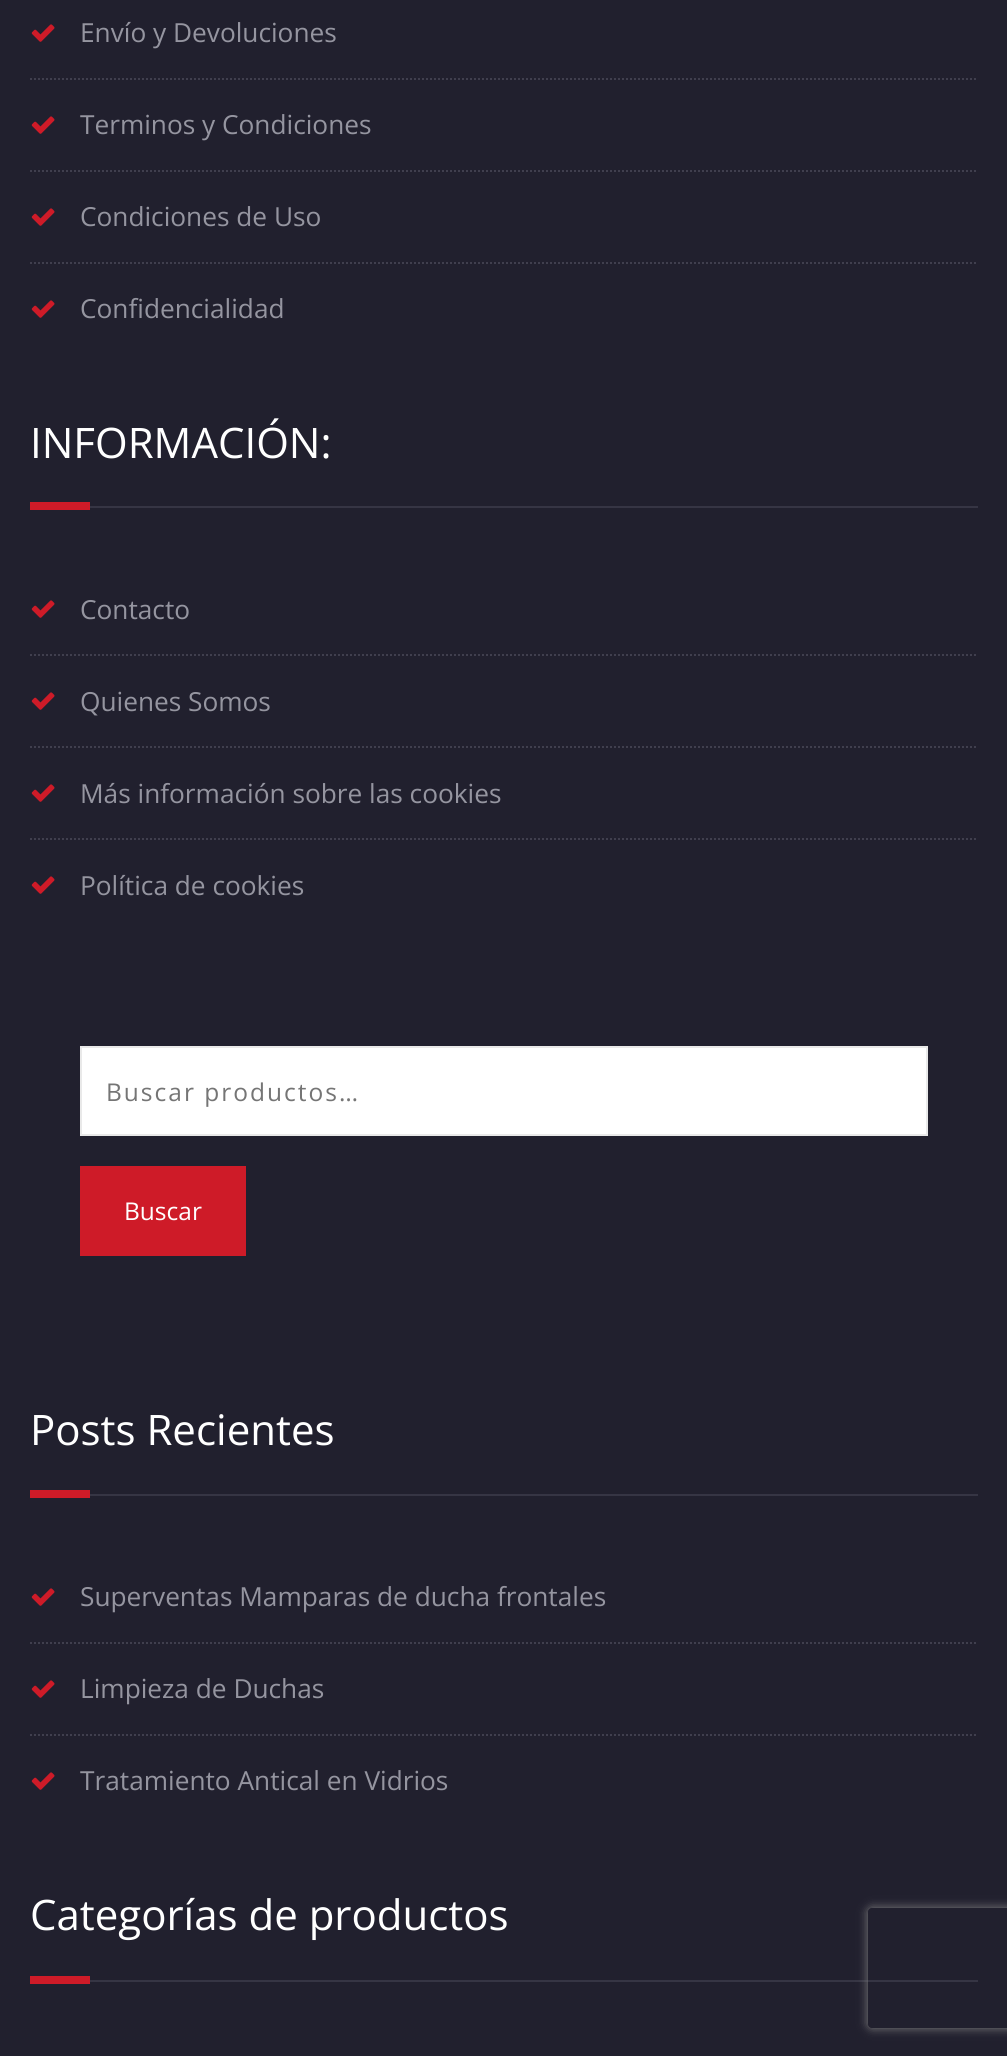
#include <cairo/cairo.h>
#include <math.h>
#include <stddef.h>


static void draw_spaced(cairo_t *cr, double x, double y, const char *s, double letter, double word) {
  cairo_move_to(cr, x, y);
  while (*s) {
    char ch[5] = {0};
    int n = 0;
    do ch[n++] = *s++; while ((*s & 0xC0) == 0x80);
    cairo_show_text(cr, ch);
    cairo_rel_move_to(cr, letter + word * (*ch == ' '), 0);
  }
}

static void rounded_rect(cairo_t *cr, double x, double y, double w, double h, double r) {
  cairo_new_sub_path(cr);
  cairo_arc(cr, x + w - r, y + h - r, r, 0, M_PI / 2);
  cairo_arc(cr, x + r, y + h - r, r, M_PI / 2, M_PI);
  cairo_arc(cr, x + r, y + r, r, M_PI, 1.5 * M_PI);
  cairo_arc(cr, x + w - r, y + r, r, 1.5 * M_PI, 2 * M_PI);
  cairo_close_path(cr);
}

static void draw_shadow(cairo_t *cr, double x, double y, double w, double h, double r, double blur, double alpha) {
  cairo_push_group_with_content(cr, CAIRO_CONTENT_ALPHA);
  cairo_set_operator(cr, CAIRO_OPERATOR_SOURCE);
  for (int i = 15; i >= -15 && fmin(w, h) + blur * i / 3 > 0; i -= 2) {
    double e = blur * i / 6;
    cairo_set_source_rgba(cr, 0, 0, 0, alpha * erfc((i - 1) / 8.5) / 2);
    rounded_rect(cr, x - e, y - e, w + 2 * e, h + 2 * e, fmax(0, fmin(r + e + blur * .6, fmin(w, h) / 2 + e)));
    cairo_fill(cr);
  }
  cairo_pattern_t *soft = cairo_pop_group(cr);
  cairo_mask(cr, soft);
  cairo_pattern_destroy(soft);
}

static void draw_image(cairo_t *cr, const char *path, double x, double y, double w, double h) {
  cairo_surface_t *image = cairo_image_surface_create_from_png(path);
  cairo_save(cr);
  cairo_set_source_surface(cr, image, x, y);
  cairo_rectangle(cr, x, y, w, h);
  cairo_fill(cr);
  cairo_restore(cr);
  cairo_surface_destroy(image);
}

static void draw(cairo_t *cr) {
  cairo_set_source_rgb(cr, 33 / 255.0, 32 / 255.0, 46 / 255.0);
  cairo_paint(cr);
  cairo_new_path(cr);
  cairo_move_to(cr, 30, 79);
  cairo_line_to(cr, 978, 79);
  cairo_set_source_rgb(cr, 64 / 255.0, 63 / 255.0, 78 / 255.0);
  cairo_set_dash(cr, (double[]){2, 2}, 2, 0);
  cairo_stroke(cr);
  draw_image(cr, "images/1.png", 31, 24, 24, 18);
  cairo_new_path(cr);
  cairo_move_to(cr, 30, 171);
  cairo_line_to(cr, 978, 171);
  cairo_stroke(cr);
  draw_image(cr, "images/1.png", 31, 116, 24, 18);
  cairo_new_path(cr);
  cairo_move_to(cr, 30, 263);
  cairo_line_to(cr, 978, 263);
  cairo_stroke(cr);
  draw_image(cr, "images/1.png", 31, 208, 24, 18);
  draw_image(cr, "images/1.png", 31, 300, 24, 18);
  cairo_set_source_rgb(cr, 54 / 255.0, 53 / 255.0, 68 / 255.0);
  cairo_rectangle(cr, 90, 506, 888, 2);
  cairo_fill(cr);
  cairo_set_source_rgb(cr, 206 / 255.0, 27 / 255.0, 40 / 255.0);
  cairo_rectangle(cr, 30, 502, 60, 8);
  cairo_fill(cr);
  cairo_new_path(cr);
  cairo_move_to(cr, 30, 655);
  cairo_line_to(cr, 978, 655);
  cairo_set_source_rgb(cr, 64 / 255.0, 63 / 255.0, 78 / 255.0);
  cairo_stroke(cr);
  draw_image(cr, "images/1.png", 31, 600, 24, 18);
  cairo_new_path(cr);
  cairo_move_to(cr, 30, 747);
  cairo_line_to(cr, 978, 747);
  cairo_stroke(cr);
  draw_image(cr, "images/1.png", 31, 692, 24, 18);
  cairo_new_path(cr);
  cairo_move_to(cr, 30, 839);
  cairo_line_to(cr, 978, 839);
  cairo_stroke(cr);
  draw_image(cr, "images/1.png", 31, 784, 24, 18);
  draw_image(cr, "images/1.png", 31, 876, 24, 18);
  cairo_set_source_rgb(cr, 1, 1, 1);
  cairo_rectangle(cr, 81, 1047, 846, 88);
  cairo_fill_preserve(cr);
  cairo_set_source_rgb(cr, 233 / 255.0, 233 / 255.0, 233 / 255.0);
  cairo_set_dash(cr, NULL, 0, 0);
  cairo_stroke(cr);
  cairo_set_source_rgb(cr, 206 / 255.0, 27 / 255.0, 40 / 255.0);
  cairo_rectangle(cr, 80, 1166, 166, 90);
  cairo_fill(cr);
  cairo_set_source_rgb(cr, 54 / 255.0, 53 / 255.0, 68 / 255.0);
  cairo_rectangle(cr, 90, 1494, 888, 2);
  cairo_fill(cr);
  cairo_set_source_rgb(cr, 206 / 255.0, 27 / 255.0, 40 / 255.0);
  cairo_rectangle(cr, 30, 1490, 60, 8);
  cairo_fill(cr);
  cairo_new_path(cr);
  cairo_move_to(cr, 30, 1643);
  cairo_line_to(cr, 978, 1643);
  cairo_set_source_rgb(cr, 64 / 255.0, 63 / 255.0, 78 / 255.0);
  cairo_set_dash(cr, (double[]){2, 2}, 2, 0);
  cairo_stroke(cr);
  draw_image(cr, "images/1.png", 31, 1588, 24, 18);
  cairo_new_path(cr);
  cairo_move_to(cr, 30, 1735);
  cairo_line_to(cr, 978, 1735);
  cairo_stroke(cr);
  draw_image(cr, "images/1.png", 31, 1680, 24, 18);
  draw_image(cr, "images/1.png", 31, 1772, 24, 18);
  cairo_set_source_rgb(cr, 54 / 255.0, 53 / 255.0, 68 / 255.0);
  cairo_rectangle(cr, 90, 1980, 888, 2);
  cairo_fill(cr);
  cairo_set_source_rgb(cr, 206 / 255.0, 27 / 255.0, 40 / 255.0);
  cairo_rectangle(cr, 30, 1976, 60, 8);
  cairo_fill(cr);
  cairo_save(cr);
  cairo_set_fill_rule(cr, CAIRO_FILL_RULE_EVEN_ODD);
  cairo_new_path(cr);
  cairo_move_to(cr, 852, 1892);
  cairo_line_to(cr, 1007, 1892);
  cairo_line_to(cr, 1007, 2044);
  cairo_line_to(cr, 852, 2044);
  cairo_close_path(cr);
  cairo_move_to(cr, 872, 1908);
  cairo_line_to(cr, 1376, 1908);
  cairo_curve_to(cr, 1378, 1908, 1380, 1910, 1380, 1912);
  cairo_line_to(cr, 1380, 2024);
  cairo_curve_to(cr, 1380, 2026, 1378, 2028, 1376, 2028);
  cairo_line_to(cr, 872, 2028);
  cairo_curve_to(cr, 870, 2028, 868, 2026, 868, 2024);
  cairo_line_to(cr, 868, 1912);
  cairo_curve_to(cr, 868, 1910, 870, 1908, 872, 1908);
  cairo_close_path(cr);
  cairo_clip(cr);
  cairo_set_source_rgb(cr, 128 / 255.0, 128 / 255.0, 128 / 255.0);
  draw_shadow(cr, 868, 1908, 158, 120, 4, 5, 1);
  cairo_restore(cr);
  cairo_select_font_face(cr, "Open Sans", CAIRO_FONT_SLANT_NORMAL, CAIRO_FONT_WEIGHT_NORMAL);
  cairo_set_font_size(cr, 26.25);
  cairo_set_source_rgb(cr, 149 / 255.0, 149 / 255.0, 160 / 255.0);
  cairo_move_to(cr, 80, 42);
  cairo_show_text(cr, "Envío y Devoluciones");
  cairo_move_to(cr, 80, 134);
  cairo_show_text(cr, "Terminos y Condiciones");
  cairo_move_to(cr, 80, 226);
  cairo_show_text(cr, "Condiciones de Uso");
  cairo_move_to(cr, 80, 318);
  cairo_show_text(cr, "Confidencialidad");
  cairo_set_font_size(cr, 42);
  cairo_set_source_rgb(cr, 1, 1, 1);
  cairo_move_to(cr, 30, 458);
  cairo_show_text(cr, "INFORMACIÓN:");
  cairo_set_font_size(cr, 26.25);
  cairo_set_source_rgb(cr, 149 / 255.0, 149 / 255.0, 160 / 255.0);
  cairo_move_to(cr, 80, 619);
  cairo_show_text(cr, "Contacto");
  cairo_move_to(cr, 80, 711);
  cairo_show_text(cr, "Quienes Somos");
  cairo_move_to(cr, 80, 803);
  cairo_show_text(cr, "Más información sobre las cookies");
  cairo_move_to(cr, 80, 895);
  cairo_show_text(cr, "Política de cookies");
  cairo_set_font_size(cr, 24.5);
  cairo_set_source_rgb(cr, 117 / 255.0, 117 / 255.0, 117 / 255.0);
  draw_spaced(cr, 106, 1101, "Buscar productos…", 2, 0);
  cairo_set_source_rgb(cr, 1, 1, 1);
  cairo_move_to(cr, 124, 1220);
  cairo_show_text(cr, "Buscar");
  cairo_set_font_size(cr, 42);
  cairo_move_to(cr, 30, 1445);
  cairo_show_text(cr, "Posts Recientes");
  cairo_set_font_size(cr, 26.25);
  cairo_set_source_rgb(cr, 149 / 255.0, 149 / 255.0, 160 / 255.0);
  cairo_move_to(cr, 80, 1606);
  cairo_show_text(cr, "Superventas Mamparas de ducha frontales");
  cairo_move_to(cr, 80, 1698);
  cairo_show_text(cr, "Limpieza de Duchas");
  cairo_move_to(cr, 80, 1790);
  cairo_show_text(cr, "Tratamiento Antical en Vidrios");
  cairo_set_font_size(cr, 42);
  cairo_set_source_rgb(cr, 1, 1, 1);
  cairo_move_to(cr, 30, 1930);
  cairo_show_text(cr, "Categorías de productos");
}

int main(void) {
  cairo_surface_t *surface = cairo_image_surface_create(CAIRO_FORMAT_RGB24, 1007, 2056);
  cairo_t *cr = cairo_create(surface);
  cairo_font_options_t *options = cairo_font_options_create();
  cairo_font_options_set_hint_metrics(options, CAIRO_HINT_METRICS_OFF);
  cairo_font_options_set_hint_style(options, CAIRO_HINT_STYLE_NONE);
  cairo_set_font_options(cr, options);
  cairo_set_miter_limit(cr, 4);
  draw(cr);
  cairo_surface_write_to_png(surface, "out.png");
  cairo_font_options_destroy(options);
  cairo_destroy(cr);
  cairo_surface_destroy(surface);
  return 0;
}
